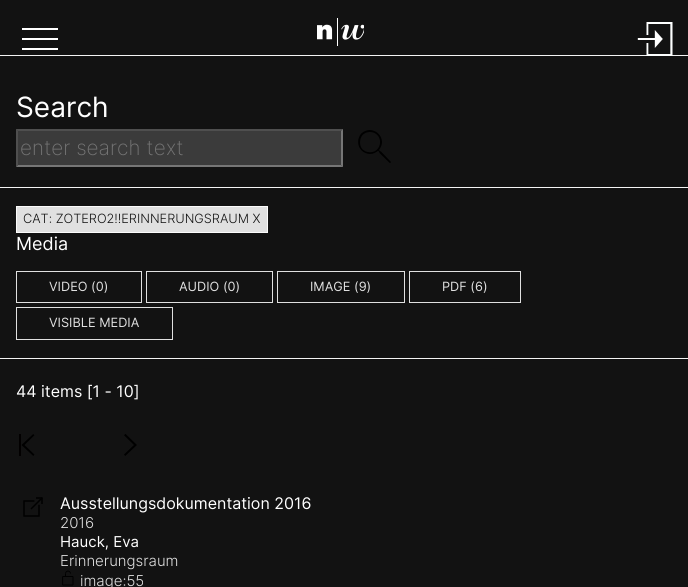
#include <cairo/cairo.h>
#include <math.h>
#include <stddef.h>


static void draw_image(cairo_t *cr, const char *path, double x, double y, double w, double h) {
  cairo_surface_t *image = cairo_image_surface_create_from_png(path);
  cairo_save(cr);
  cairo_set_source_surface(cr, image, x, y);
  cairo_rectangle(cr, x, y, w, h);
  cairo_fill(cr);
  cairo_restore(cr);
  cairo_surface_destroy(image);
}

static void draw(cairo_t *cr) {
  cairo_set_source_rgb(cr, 18 / 255.0, 18 / 255.0, 18 / 255.0);
  cairo_paint(cr);
  cairo_set_source_rgb(cr, 243 / 255.0, 243 / 255.0, 243 / 255.0);
  cairo_rectangle(cr, 0, 55, 688, 1);
  cairo_fill(cr);
  cairo_set_source_rgb(cr, 1, 1, 1);
  cairo_new_path(cr);
  cairo_move_to(cr, 22, 50);
  cairo_line_to(cr, 58, 50);
  cairo_line_to(cr, 58, 48);
  cairo_line_to(cr, 22, 48);
  cairo_close_path(cr);
  cairo_move_to(cr, 22, 40);
  cairo_line_to(cr, 58, 40);
  cairo_line_to(cr, 58, 38);
  cairo_line_to(cr, 22, 38);
  cairo_close_path(cr);
  cairo_move_to(cr, 22, 28);
  cairo_line_to(cr, 22, 30);
  cairo_line_to(cr, 58, 30);
  cairo_line_to(cr, 58, 28);
  cairo_close_path(cr);
  cairo_fill(cr);
  draw_image(cr, "images/1.png", 317, 18, 47, 28);
  draw_image(cr, "images/2.png", 637, 22, 36, 34);
  cairo_set_source_rgb(cr, 59 / 255.0, 59 / 255.0, 59 / 255.0);
  cairo_rectangle(cr, 16, 129, 327, 38);
  cairo_fill(cr);
  cairo_set_source_rgb(cr, 79 / 255.0, 79 / 255.0, 79 / 255.0);
  cairo_new_path(cr);
  cairo_move_to(cr, 16, 129);
  cairo_line_to(cr, 343, 129);
  cairo_line_to(cr, 341, 131);
  cairo_line_to(cr, 18, 131);
  cairo_close_path(cr);
  cairo_fill(cr);
  cairo_set_source_rgb(cr, 118 / 255.0, 118 / 255.0, 118 / 255.0);
  cairo_new_path(cr);
  cairo_move_to(cr, 343, 129);
  cairo_line_to(cr, 343, 167);
  cairo_line_to(cr, 341, 165);
  cairo_line_to(cr, 341, 131);
  cairo_close_path(cr);
  cairo_fill(cr);
  cairo_new_path(cr);
  cairo_move_to(cr, 343, 167);
  cairo_line_to(cr, 16, 167);
  cairo_line_to(cr, 18, 165);
  cairo_line_to(cr, 341, 165);
  cairo_close_path(cr);
  cairo_fill(cr);
  cairo_set_source_rgb(cr, 79 / 255.0, 79 / 255.0, 79 / 255.0);
  cairo_new_path(cr);
  cairo_move_to(cr, 16, 167);
  cairo_line_to(cr, 16, 129);
  cairo_line_to(cr, 18, 131);
  cairo_line_to(cr, 18, 165);
  cairo_close_path(cr);
  cairo_fill(cr);
  draw_image(cr, "images/3.png", 358, 130, 33, 33);
  cairo_set_source_rgb(cr, 243 / 255.0, 243 / 255.0, 243 / 255.0);
  cairo_rectangle(cr, 0, 187, 688, 1);
  cairo_fill(cr);
  cairo_rectangle(cr, 0, 358, 688, 1);
  cairo_fill(cr);
  cairo_set_source_rgb(cr, 224 / 255.0, 224 / 255.0, 224 / 255.0);
  cairo_rectangle(cr, 16.5, 206.5, 251, 26);
  cairo_fill_preserve(cr);
  cairo_set_source_rgb(cr, 251 / 255.0, 251 / 255.0, 251 / 255.0);
  cairo_set_line_width(cr, 1);
  cairo_stroke(cr);
  cairo_rectangle(cr, 16.5, 271.5, 125, 31);
  cairo_set_source_rgb(cr, 224 / 255.0, 224 / 255.0, 224 / 255.0);
  cairo_stroke(cr);
  cairo_rectangle(cr, 146.5, 271.5, 126, 31);
  cairo_stroke(cr);
  cairo_rectangle(cr, 277.5, 271.5, 127, 31);
  cairo_stroke(cr);
  cairo_rectangle(cr, 409.5, 271.5, 111, 31);
  cairo_stroke(cr);
  cairo_rectangle(cr, 16.5, 307.5, 156, 32);
  cairo_stroke(cr);
  draw_image(cr, "images/4.png", 19, 434, 16, 22);
  draw_image(cr, "images/5.png", 124, 434, 13, 22);
  draw_image(cr, "images/6.png", 23, 497, 20, 20);
  draw_image(cr, "images/7.png", 62, 570, 12, 16);
  cairo_select_font_face(cr, "Inter", CAIRO_FONT_SLANT_NORMAL, CAIRO_FONT_WEIGHT_NORMAL);
  cairo_set_font_size(cr, 28);
  cairo_set_source_rgb(cr, 1, 1, 1);
  cairo_move_to(cr, 16, 117);
  cairo_show_text(cr, "Search");
  cairo_select_font_face(cr, "Inter ExtraLight", CAIRO_FONT_SLANT_NORMAL, CAIRO_FONT_WEIGHT_NORMAL);
  cairo_set_font_size(cr, 20.75);
  cairo_set_source_rgb(cr, 117 / 255.0, 117 / 255.0, 117 / 255.0);
  cairo_move_to(cr, 20, 155);
  cairo_show_text(cr, "enter search text");
  cairo_select_font_face(cr, "Inter Light", CAIRO_FONT_SLANT_NORMAL, CAIRO_FONT_WEIGHT_NORMAL);
  cairo_set_font_size(cr, 12.75);
  cairo_set_source_rgb(cr, 18 / 255.0, 18 / 255.0, 18 / 255.0);
  cairo_move_to(cr, 23, 223);
  cairo_show_text(cr, "CAT: ZOTERO2!!ERINNERUNGSRAUM X");
  cairo_select_font_face(cr, "Inter", CAIRO_FONT_SLANT_NORMAL, CAIRO_FONT_WEIGHT_NORMAL);
  cairo_set_font_size(cr, 18);
  cairo_set_source_rgb(cr, 1, 1, 1);
  cairo_move_to(cr, 16, 250);
  cairo_show_text(cr, "Media");
  cairo_set_font_size(cr, 12.75);
  cairo_set_source_rgb(cr, 224 / 255.0, 224 / 255.0, 224 / 255.0);
  cairo_move_to(cr, 49, 291);
  cairo_show_text(cr, "VIDEO (0)");
  cairo_move_to(cr, 179, 291);
  cairo_show_text(cr, "AUDIO (0)");
  cairo_move_to(cr, 310, 291);
  cairo_show_text(cr, "IMAGE (9)");
  cairo_move_to(cr, 442, 291);
  cairo_show_text(cr, "PDF (6)");
  cairo_move_to(cr, 49, 327);
  cairo_show_text(cr, "VISIBLE MEDIA");
  cairo_set_font_size(cr, 16);
  cairo_set_source_rgb(cr, 1, 1, 1);
  cairo_move_to(cr, 16, 397);
  cairo_show_text(cr, "44 items [1 - 10]");
  cairo_move_to(cr, 60, 509);
  cairo_show_text(cr, "Ausstellungsdokumentation 2016");
  cairo_select_font_face(cr, "Inter Light", CAIRO_FONT_SLANT_NORMAL, CAIRO_FONT_WEIGHT_NORMAL);
  cairo_set_font_size(cr, 15);
  cairo_set_source_rgb(cr, 224 / 255.0, 224 / 255.0, 224 / 255.0);
  cairo_move_to(cr, 60, 528);
  cairo_show_text(cr, "2016");
  cairo_select_font_face(cr, "Inter", CAIRO_FONT_SLANT_NORMAL, CAIRO_FONT_WEIGHT_NORMAL);
  cairo_set_source_rgb(cr, 1, 1, 1);
  cairo_move_to(cr, 60, 547);
  cairo_show_text(cr, "Hauck, Eva");
  cairo_select_font_face(cr, "Inter Light", CAIRO_FONT_SLANT_NORMAL, CAIRO_FONT_WEIGHT_NORMAL);
  cairo_set_source_rgb(cr, 224 / 255.0, 224 / 255.0, 224 / 255.0);
  cairo_move_to(cr, 60, 566);
  cairo_show_text(cr, "Erinnerungsraum");
  cairo_move_to(cr, 80, 586);
  cairo_show_text(cr, "image:55");
}

int main(void) {
  cairo_surface_t *surface = cairo_image_surface_create(CAIRO_FORMAT_RGB24, 688, 587);
  cairo_t *cr = cairo_create(surface);
  cairo_font_options_t *options = cairo_font_options_create();
  cairo_font_options_set_hint_metrics(options, CAIRO_HINT_METRICS_OFF);
  cairo_font_options_set_hint_style(options, CAIRO_HINT_STYLE_NONE);
  cairo_set_font_options(cr, options);
  cairo_set_miter_limit(cr, 4);
  draw(cr);
  cairo_surface_write_to_png(surface, "out.png");
  cairo_font_options_destroy(options);
  cairo_destroy(cr);
  cairo_surface_destroy(surface);
  return 0;
}
